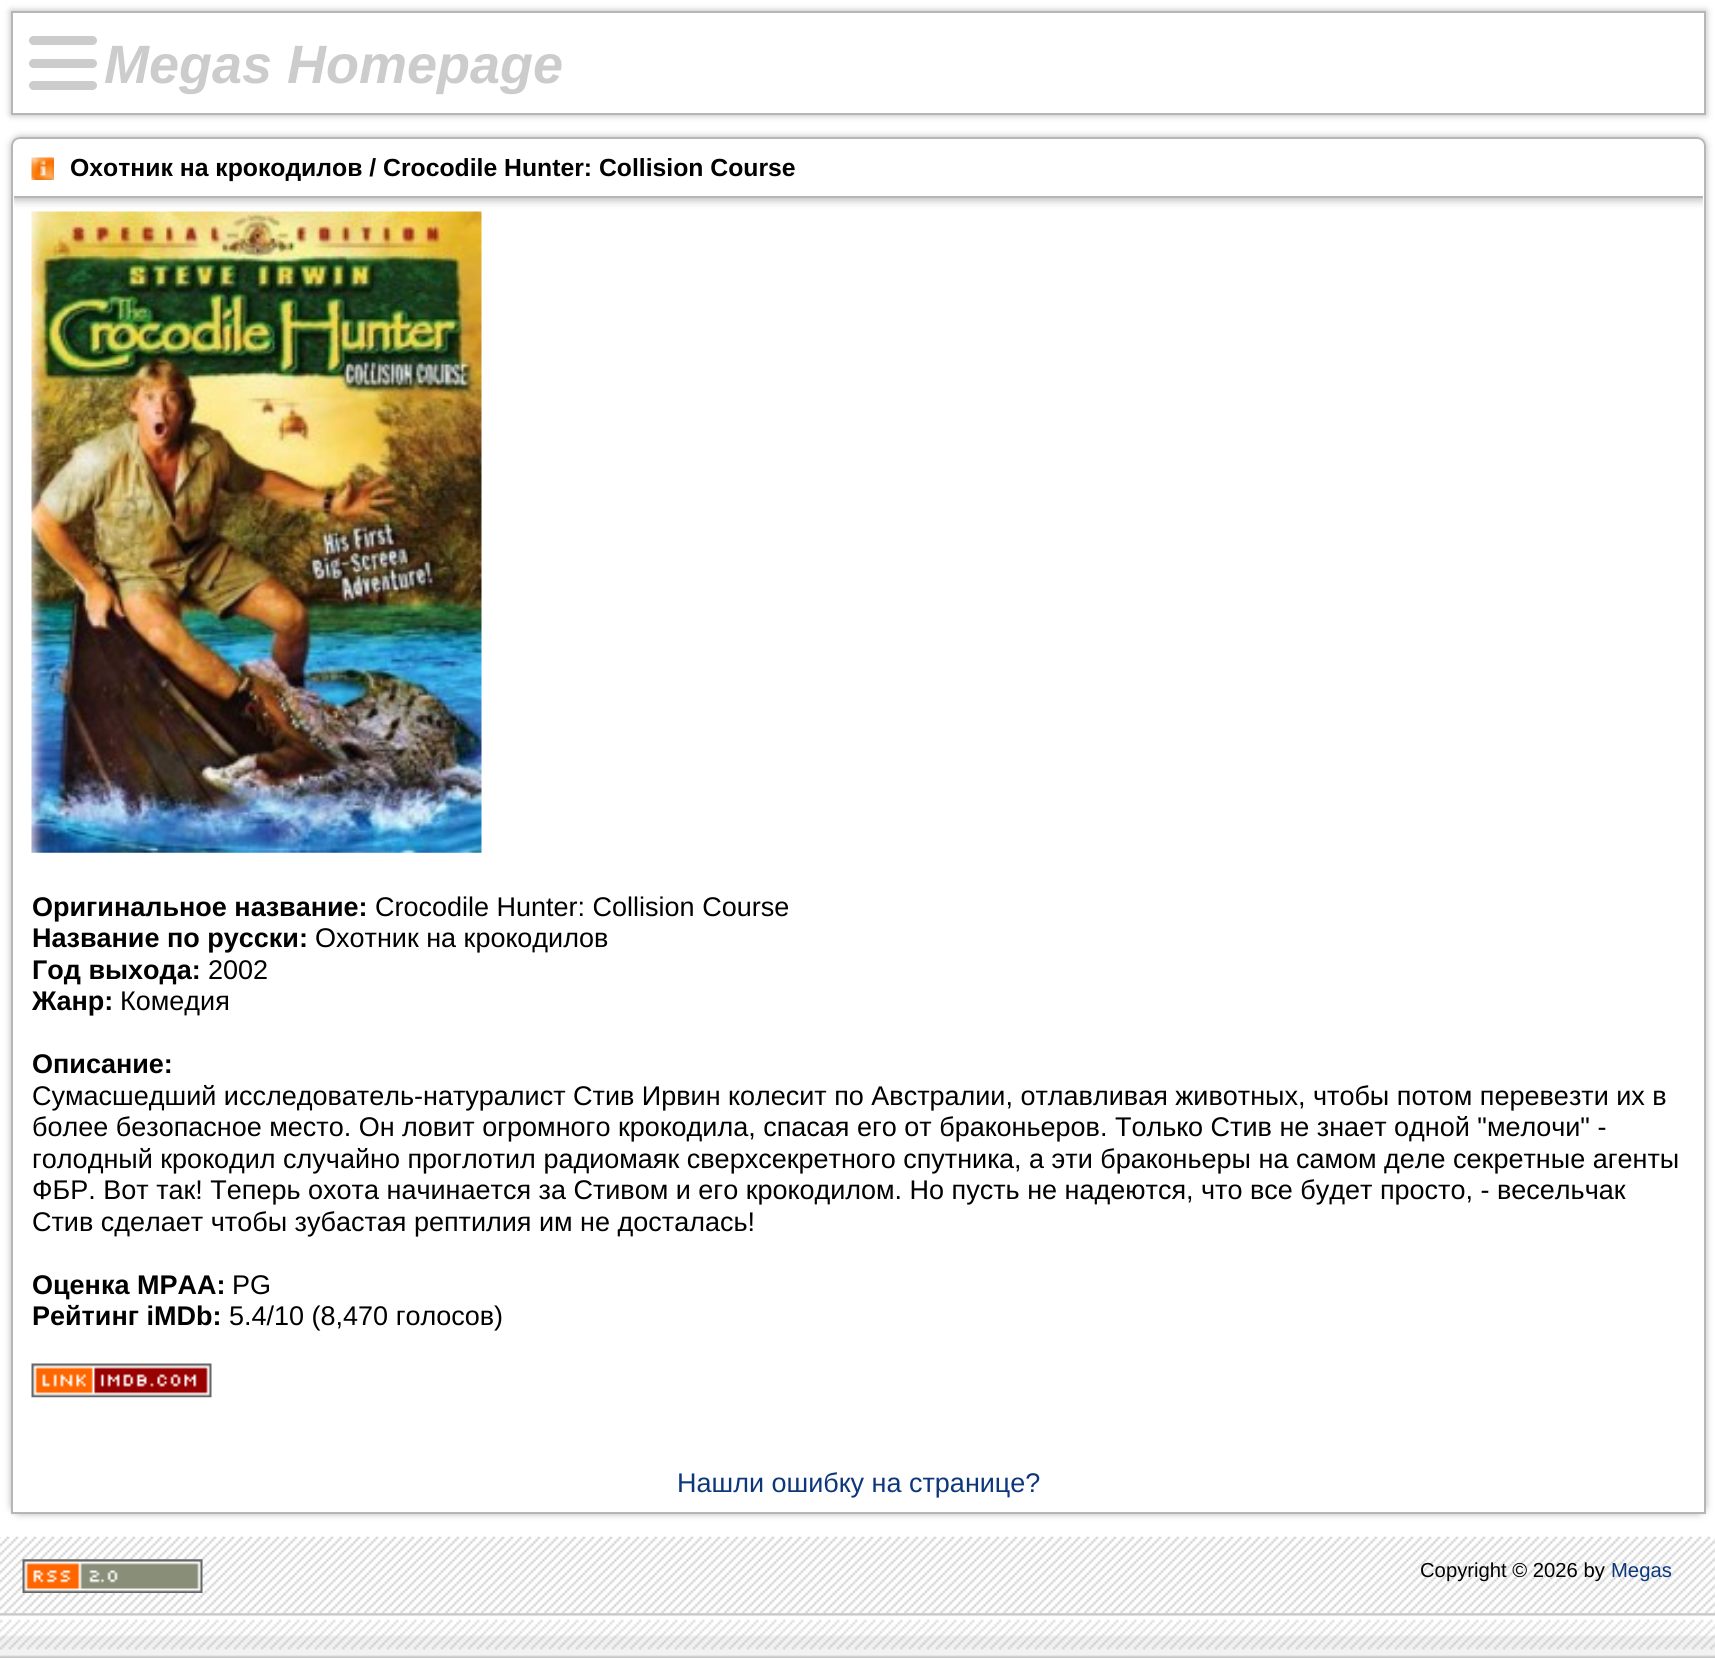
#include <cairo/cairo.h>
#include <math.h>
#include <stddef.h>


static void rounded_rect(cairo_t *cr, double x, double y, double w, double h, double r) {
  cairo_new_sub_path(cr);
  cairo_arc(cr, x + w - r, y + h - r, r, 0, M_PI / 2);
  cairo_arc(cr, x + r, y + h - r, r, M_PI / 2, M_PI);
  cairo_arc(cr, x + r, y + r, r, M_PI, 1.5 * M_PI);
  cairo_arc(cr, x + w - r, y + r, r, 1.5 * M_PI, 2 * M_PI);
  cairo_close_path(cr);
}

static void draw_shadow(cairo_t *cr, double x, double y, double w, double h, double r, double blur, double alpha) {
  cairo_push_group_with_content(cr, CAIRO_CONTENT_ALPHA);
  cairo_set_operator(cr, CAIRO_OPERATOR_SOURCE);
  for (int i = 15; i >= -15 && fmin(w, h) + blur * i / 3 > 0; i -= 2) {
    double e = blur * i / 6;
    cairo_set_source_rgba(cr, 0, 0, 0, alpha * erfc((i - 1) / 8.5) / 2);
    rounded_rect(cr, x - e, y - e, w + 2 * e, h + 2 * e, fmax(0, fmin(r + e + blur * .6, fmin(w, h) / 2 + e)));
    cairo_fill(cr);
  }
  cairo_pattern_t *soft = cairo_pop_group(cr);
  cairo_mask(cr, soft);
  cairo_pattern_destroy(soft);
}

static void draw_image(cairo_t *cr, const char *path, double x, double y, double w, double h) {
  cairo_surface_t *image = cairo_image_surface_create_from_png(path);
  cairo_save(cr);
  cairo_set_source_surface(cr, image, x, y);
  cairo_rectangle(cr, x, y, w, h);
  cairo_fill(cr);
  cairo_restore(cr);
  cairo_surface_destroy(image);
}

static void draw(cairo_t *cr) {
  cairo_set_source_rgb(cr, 1, 1, 1);
  cairo_paint(cr);
  cairo_save(cr);
  cairo_set_fill_rule(cr, CAIRO_FILL_RULE_EVEN_ODD);
  cairo_new_path(cr);
  cairo_move_to(cr, 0, 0);
  cairo_line_to(cr, 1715, 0);
  cairo_line_to(cr, 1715, 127);
  cairo_line_to(cr, 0, 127);
  cairo_close_path(cr);
  cairo_move_to(cr, 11, 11);
  cairo_line_to(cr, 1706, 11);
  cairo_line_to(cr, 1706, 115);
  cairo_line_to(cr, 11, 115);
  cairo_close_path(cr);
  cairo_clip(cr);
  cairo_set_source_rgb(cr, 182 / 255.0, 182 / 255.0, 182 / 255.0);
  draw_shadow(cr, 11, 11, 1695, 104, 0, 3.5, 1);
  cairo_restore(cr);
  cairo_rectangle(cr, 12, 12, 1693, 102);
  cairo_set_source_rgb(cr, 182 / 255.0, 182 / 255.0, 182 / 255.0);
  cairo_stroke(cr);
  cairo_set_source_rgb(cr, 204 / 255.0, 204 / 255.0, 204 / 255.0);
  rounded_rect(cr, 29, 36, 68, 9, 4.5);
  cairo_fill(cr);
  rounded_rect(cr, 29, 59, 68, 9, 4.5);
  cairo_fill(cr);
  rounded_rect(cr, 29, 81, 68, 9, 4.5);
  cairo_fill(cr);
  cairo_save(cr);
  cairo_set_fill_rule(cr, CAIRO_FILL_RULE_EVEN_ODD);
  cairo_new_path(cr);
  cairo_move_to(cr, 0, 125);
  cairo_line_to(cr, 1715, 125);
  cairo_line_to(cr, 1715, 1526);
  cairo_line_to(cr, 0, 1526);
  cairo_close_path(cr);
  cairo_move_to(cr, 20, 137);
  cairo_line_to(cr, 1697, 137);
  cairo_curve_to(cr, 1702, 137, 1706, 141, 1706, 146);
  cairo_line_to(cr, 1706, 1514);
  cairo_line_to(cr, 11, 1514);
  cairo_line_to(cr, 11, 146);
  cairo_curve_to(cr, 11, 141, 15, 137, 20, 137);
  cairo_close_path(cr);
  cairo_clip(cr);
  cairo_set_source_rgb(cr, 182 / 255.0, 182 / 255.0, 182 / 255.0);
  draw_shadow(cr, 11, 137, 1695, 1377, 9, 3.5, 1);
  cairo_restore(cr);
  cairo_new_path(cr);
  cairo_move_to(cr, 20, 138);
  cairo_line_to(cr, 1697, 138);
  cairo_curve_to(cr, 1701.5, 138, 1705, 141.5, 1705, 146);
  cairo_line_to(cr, 1705, 1513);
  cairo_line_to(cr, 12, 1513);
  cairo_line_to(cr, 12, 146);
  cairo_curve_to(cr, 12, 141.5, 15.5, 138, 20, 138);
  cairo_close_path(cr);
  cairo_set_source_rgb(cr, 182 / 255.0, 182 / 255.0, 182 / 255.0);
  cairo_stroke(cr);
  cairo_save(cr);
  cairo_new_path(cr);
  cairo_move_to(cr, 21, 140);
  cairo_line_to(cr, 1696, 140);
  cairo_curve_to(cr, 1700, 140, 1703, 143, 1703, 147);
  cairo_line_to(cr, 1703, 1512);
  cairo_line_to(cr, 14, 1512);
  cairo_line_to(cr, 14, 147);
  cairo_curve_to(cr, 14, 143, 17, 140, 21, 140);
  cairo_close_path(cr);
  cairo_clip(cr);
  cairo_rectangle(cr, 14, 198, 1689, 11);
  cairo_clip(cr);
  cairo_set_source_rgb(cr, 182 / 255.0, 182 / 255.0, 182 / 255.0);
  draw_shadow(cr, 14, 142, 1689, 58, 0, 4.5, 1);
  cairo_restore(cr);
  cairo_rectangle(cr, 14, 196, 1689, 2);
  cairo_fill(cr);
  draw_image(cr, "images/1.png", 31, 157, 23, 23);
  draw_image(cr, "images/2.png", 31, 211, 451, 642);
  draw_image(cr, "images/3.png", 31, 1363, 181, 35);
  draw_image(cr, "images/4.png", 0, 1536, 1715, 78);
  draw_image(cr, "images/5.png", 22, 1559, 181, 34);
  draw_image(cr, "images/6.png", 0, 1613, 1715, 45);
  cairo_select_font_face(cr, "Liberation Sans", CAIRO_FONT_SLANT_ITALIC, CAIRO_FONT_WEIGHT_BOLD);
  cairo_set_font_size(cr, 54);
  cairo_set_source_rgb(cr, 204 / 255.0, 204 / 255.0, 204 / 255.0);
  cairo_move_to(cr, 104, 83);
  cairo_show_text(cr, "Megas Homepage");
  cairo_select_font_face(cr, "Liberation Sans", CAIRO_FONT_SLANT_NORMAL, CAIRO_FONT_WEIGHT_BOLD);
  cairo_set_font_size(cr, 24.75);
  cairo_set_source_rgb(cr, 0, 0, 0);
  cairo_move_to(cr, 70, 176);
  cairo_show_text(cr, "Охотник на крокодилов / Crocodile Hunter: Collision Course");
  cairo_set_font_size(cr, 27);
  cairo_move_to(cr, 32, 916);
  cairo_show_text(cr, "Оригинальное название:");
  cairo_select_font_face(cr, "Liberation Sans", CAIRO_FONT_SLANT_NORMAL, CAIRO_FONT_WEIGHT_NORMAL);
  cairo_move_to(cr, 375, 916);
  cairo_show_text(cr, "Crocodile Hunter: Collision Course");
  cairo_select_font_face(cr, "Liberation Sans", CAIRO_FONT_SLANT_NORMAL, CAIRO_FONT_WEIGHT_BOLD);
  cairo_move_to(cr, 32, 947);
  cairo_show_text(cr, "Название по русски:");
  cairo_select_font_face(cr, "Liberation Sans", CAIRO_FONT_SLANT_NORMAL, CAIRO_FONT_WEIGHT_NORMAL);
  cairo_move_to(cr, 315, 947);
  cairo_show_text(cr, "Охотник на крокодилов");
  cairo_select_font_face(cr, "Liberation Sans", CAIRO_FONT_SLANT_NORMAL, CAIRO_FONT_WEIGHT_BOLD);
  cairo_move_to(cr, 32, 979);
  cairo_show_text(cr, "Год выхода:");
  cairo_select_font_face(cr, "Liberation Sans", CAIRO_FONT_SLANT_NORMAL, CAIRO_FONT_WEIGHT_NORMAL);
  cairo_move_to(cr, 208, 979);
  cairo_show_text(cr, "2002");
  cairo_select_font_face(cr, "Liberation Sans", CAIRO_FONT_SLANT_NORMAL, CAIRO_FONT_WEIGHT_BOLD);
  cairo_move_to(cr, 32, 1010);
  cairo_show_text(cr, "Жанр:");
  cairo_select_font_face(cr, "Liberation Sans", CAIRO_FONT_SLANT_NORMAL, CAIRO_FONT_WEIGHT_NORMAL);
  cairo_move_to(cr, 120, 1010);
  cairo_show_text(cr, "Комедия");
  cairo_select_font_face(cr, "Liberation Sans", CAIRO_FONT_SLANT_NORMAL, CAIRO_FONT_WEIGHT_BOLD);
  cairo_move_to(cr, 32, 1073);
  cairo_show_text(cr, "Описание:");
  cairo_select_font_face(cr, "Liberation Sans", CAIRO_FONT_SLANT_NORMAL, CAIRO_FONT_WEIGHT_NORMAL);
  cairo_move_to(cr, 32, 1105);
  cairo_show_text(cr, "Сумасшедший исследователь-натуралист Стив Ирвин колесит по Австралии, отлавливая животных, чтобы потом перевезти их в");
  cairo_move_to(cr, 32, 1136);
  cairo_show_text(cr, "более безопасное место. Он ловит огромного крокодила, спасая его от браконьеров. Только Стив не знает одной \"мелочи\" -");
  cairo_move_to(cr, 32, 1168);
  cairo_show_text(cr, "голодный крокодил случайно проглотил радиомаяк сверхсекретного спутника, а эти браконьеры на самом деле секретные агенты");
  cairo_move_to(cr, 32, 1199);
  cairo_show_text(cr, "ФБР. Вот так! Теперь охота начинается за Стивом и его крокодилом. Но пусть не надеются, что все будет просто, - весельчак");
  cairo_move_to(cr, 32, 1231);
  cairo_show_text(cr, "Стив сделает чтобы зубастая рептилия им не досталась!");
  cairo_select_font_face(cr, "Liberation Sans", CAIRO_FONT_SLANT_NORMAL, CAIRO_FONT_WEIGHT_BOLD);
  cairo_move_to(cr, 32, 1294);
  cairo_show_text(cr, "Оценка MPAA:");
  cairo_select_font_face(cr, "Liberation Sans", CAIRO_FONT_SLANT_NORMAL, CAIRO_FONT_WEIGHT_NORMAL);
  cairo_move_to(cr, 232, 1294);
  cairo_show_text(cr, "PG");
  cairo_select_font_face(cr, "Liberation Sans", CAIRO_FONT_SLANT_NORMAL, CAIRO_FONT_WEIGHT_BOLD);
  cairo_move_to(cr, 32, 1325);
  cairo_show_text(cr, "Рейтинг iMDb:");
  cairo_select_font_face(cr, "Liberation Sans", CAIRO_FONT_SLANT_NORMAL, CAIRO_FONT_WEIGHT_NORMAL);
  cairo_move_to(cr, 229, 1325);
  cairo_show_text(cr, "5.4/10 (8,470 голосов)");
  cairo_set_source_rgb(cr, 13 / 255.0, 55 / 255.0, 124 / 255.0);
  cairo_move_to(cr, 677, 1492);
  cairo_show_text(cr, "Нашли ошибку на странице?");
  cairo_set_font_size(cr, 20.25);
  cairo_set_source_rgb(cr, 0, 0, 0);
  cairo_move_to(cr, 1420, 1577);
  cairo_show_text(cr, "Copyright © 2026 by");
  cairo_set_source_rgb(cr, 13 / 255.0, 55 / 255.0, 124 / 255.0);
  cairo_move_to(cr, 1611, 1577);
  cairo_show_text(cr, "Megas");
}

int main(void) {
  cairo_surface_t *surface = cairo_image_surface_create(CAIRO_FORMAT_RGB24, 1715, 1658);
  cairo_t *cr = cairo_create(surface);
  cairo_font_options_t *options = cairo_font_options_create();
  cairo_font_options_set_hint_metrics(options, CAIRO_HINT_METRICS_OFF);
  cairo_font_options_set_hint_style(options, CAIRO_HINT_STYLE_NONE);
  cairo_set_font_options(cr, options);
  cairo_set_miter_limit(cr, 4);
  draw(cr);
  cairo_surface_write_to_png(surface, "out.png");
  cairo_font_options_destroy(options);
  cairo_destroy(cr);
  cairo_surface_destroy(surface);
  return 0;
}
